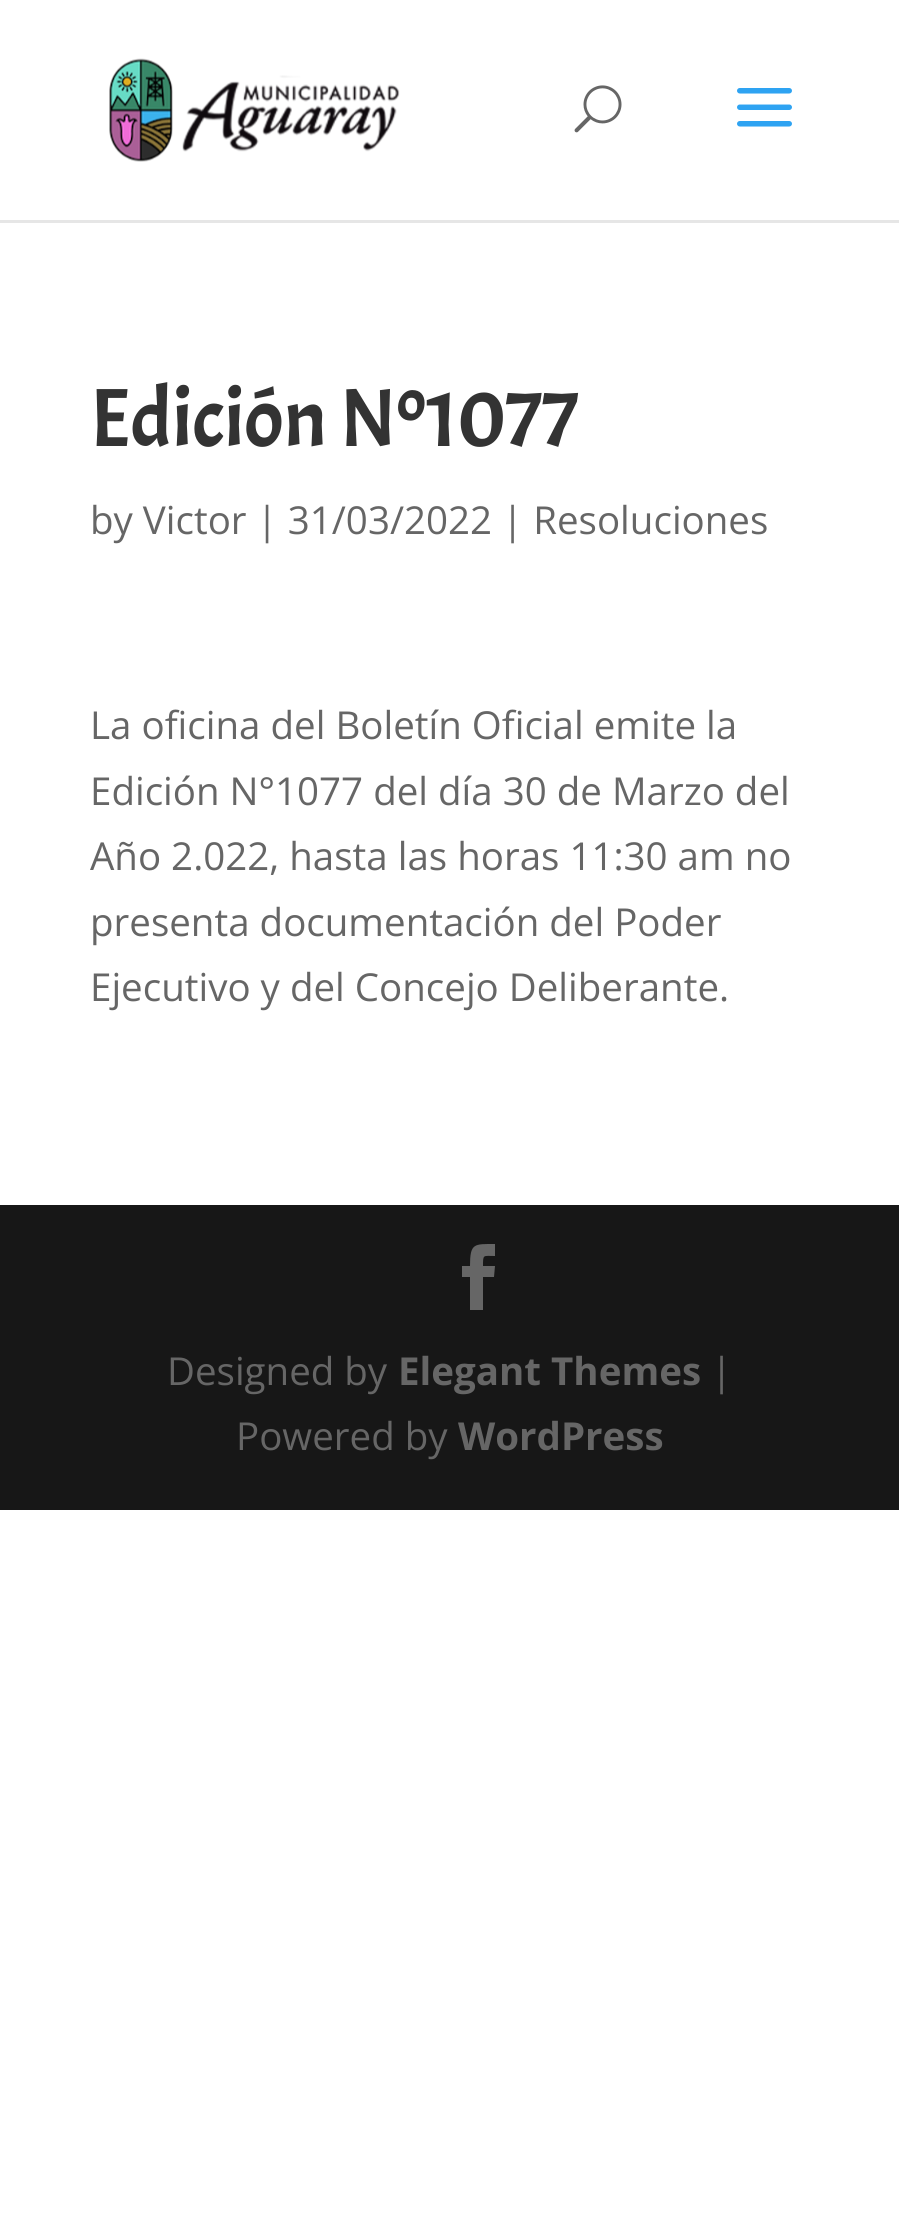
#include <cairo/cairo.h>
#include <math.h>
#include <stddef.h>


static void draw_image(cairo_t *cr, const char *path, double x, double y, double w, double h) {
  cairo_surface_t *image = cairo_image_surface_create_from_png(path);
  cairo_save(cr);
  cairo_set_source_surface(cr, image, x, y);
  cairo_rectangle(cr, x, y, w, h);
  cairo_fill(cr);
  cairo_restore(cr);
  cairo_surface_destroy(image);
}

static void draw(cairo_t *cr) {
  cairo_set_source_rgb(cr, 1, 1, 1);
  cairo_paint(cr);
  cairo_set_source_rgb(cr, 230 / 255.0, 230 / 255.0, 230 / 255.0);
  cairo_rectangle(cr, 0, 220, 899, 3);
  cairo_fill(cr);
  draw_image(cr, "images/1.png", 109, 58, 291, 104);
  draw_image(cr, "images/2.png", 574, 85, 48, 48);
  draw_image(cr, "images/3.png", 737, 88, 55, 39);
  cairo_set_source_rgb(cr, 23 / 255.0, 23 / 255.0, 23 / 255.0);
  cairo_rectangle(cr, 0, 1205, 899, 305);
  cairo_fill(cr);
  cairo_set_source_rgb(cr, 102 / 255.0, 102 / 255.0, 102 / 255.0);
  cairo_new_path(cr);
  cairo_move_to(cr, 470, 1310);
  cairo_line_to(cr, 483, 1310);
  cairo_line_to(cr, 483, 1277);
  cairo_line_to(cr, 494, 1277);
  cairo_line_to(cr, 495, 1266);
  cairo_line_to(cr, 483, 1266);
  cairo_curve_to(cr, 483, 1254, 483, 1256, 495, 1256);
  cairo_line_to(cr, 495, 1244);
  cairo_curve_to(cr, 474, 1244, 470, 1243, 470, 1266);
  cairo_line_to(cr, 462, 1266);
  cairo_line_to(cr, 462, 1277);
  cairo_line_to(cr, 470, 1277);
  cairo_close_path(cr);
  cairo_fill(cr);
  cairo_select_font_face(cr, "Acme", CAIRO_FONT_SLANT_NORMAL, CAIRO_FONT_WEIGHT_NORMAL);
  cairo_set_font_size(cr, 82.5);
  cairo_set_source_rgb(cr, 51 / 255.0, 51 / 255.0, 51 / 255.0);
  cairo_move_to(cr, 90, 446);
  cairo_show_text(cr, "Edición Nº1077");
  cairo_select_font_face(cr, "Open Sans", CAIRO_FONT_SLANT_NORMAL, CAIRO_FONT_WEIGHT_NORMAL);
  cairo_set_font_size(cr, 38.5);
  cairo_set_source_rgb(cr, 102 / 255.0, 102 / 255.0, 102 / 255.0);
  cairo_move_to(cr, 90, 534);
  cairo_show_text(cr, "by Victor | 31/03/2022 | Resoluciones");
  cairo_move_to(cr, 90, 739);
  cairo_show_text(cr, "La oficina del Boletín Oficial emite la");
  cairo_move_to(cr, 90, 805);
  cairo_show_text(cr, "Edición N°1077 del día 30 de Marzo del");
  cairo_move_to(cr, 90, 870);
  cairo_show_text(cr, "Año 2.022, hasta las horas 11:30 am no");
  cairo_move_to(cr, 90, 936);
  cairo_show_text(cr, "presenta documentación del Poder");
  cairo_move_to(cr, 90, 1001);
  cairo_show_text(cr, "Ejecutivo y del Concejo Deliberante.");
  cairo_move_to(cr, 167, 1385);
  cairo_show_text(cr, "Designed by");
  cairo_select_font_face(cr, "Open Sans", CAIRO_FONT_SLANT_NORMAL, CAIRO_FONT_WEIGHT_BOLD);
  cairo_move_to(cr, 398, 1385);
  cairo_show_text(cr, "Elegant Themes");
  cairo_select_font_face(cr, "Open Sans", CAIRO_FONT_SLANT_NORMAL, CAIRO_FONT_WEIGHT_NORMAL);
  cairo_move_to(cr, 711, 1385);
  cairo_show_text(cr, "|");
  cairo_move_to(cr, 236, 1450);
  cairo_show_text(cr, "Powered by");
  cairo_select_font_face(cr, "Open Sans", CAIRO_FONT_SLANT_NORMAL, CAIRO_FONT_WEIGHT_BOLD);
  cairo_move_to(cr, 458, 1450);
  cairo_show_text(cr, "WordPress");
}

int main(void) {
  cairo_surface_t *surface = cairo_image_surface_create(CAIRO_FORMAT_RGB24, 899, 2216);
  cairo_t *cr = cairo_create(surface);
  cairo_font_options_t *options = cairo_font_options_create();
  cairo_font_options_set_hint_metrics(options, CAIRO_HINT_METRICS_OFF);
  cairo_font_options_set_hint_style(options, CAIRO_HINT_STYLE_NONE);
  cairo_set_font_options(cr, options);
  cairo_set_miter_limit(cr, 4);
  draw(cr);
  cairo_surface_write_to_png(surface, "out.png");
  cairo_font_options_destroy(options);
  cairo_destroy(cr);
  cairo_surface_destroy(surface);
  return 0;
}
